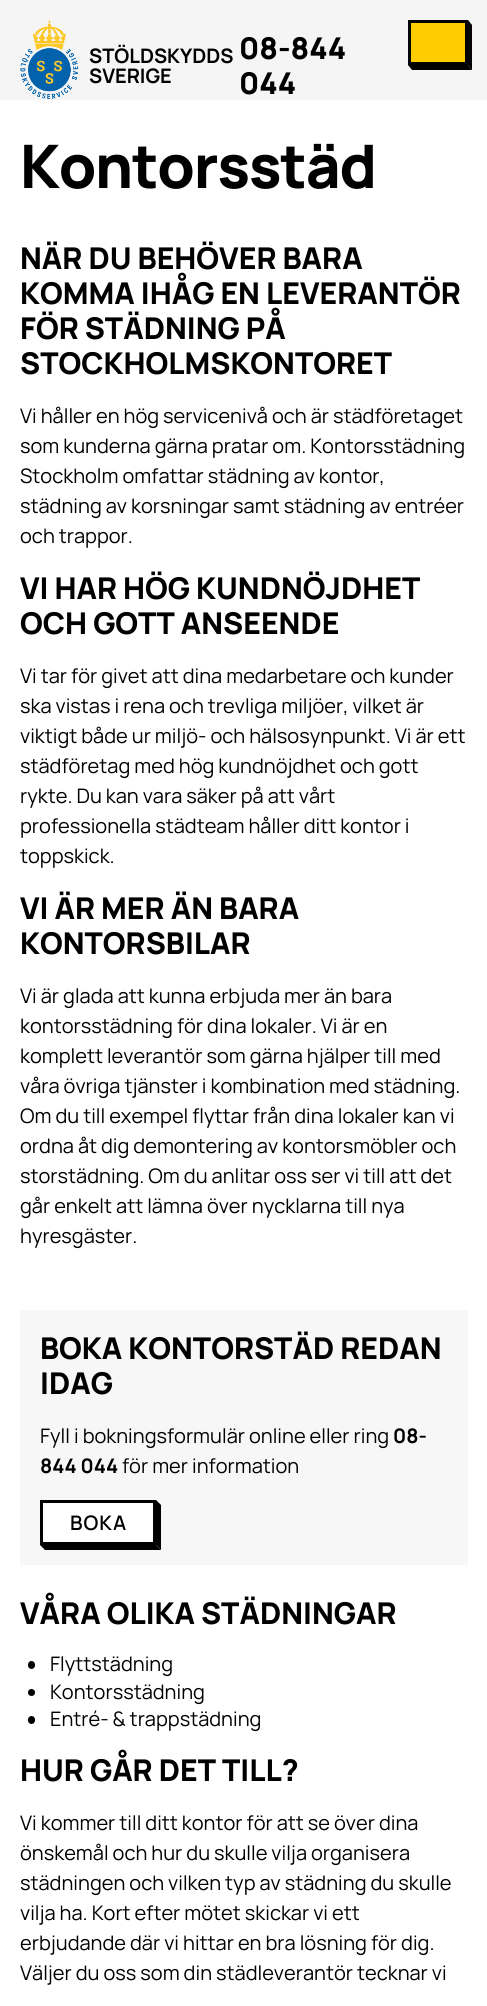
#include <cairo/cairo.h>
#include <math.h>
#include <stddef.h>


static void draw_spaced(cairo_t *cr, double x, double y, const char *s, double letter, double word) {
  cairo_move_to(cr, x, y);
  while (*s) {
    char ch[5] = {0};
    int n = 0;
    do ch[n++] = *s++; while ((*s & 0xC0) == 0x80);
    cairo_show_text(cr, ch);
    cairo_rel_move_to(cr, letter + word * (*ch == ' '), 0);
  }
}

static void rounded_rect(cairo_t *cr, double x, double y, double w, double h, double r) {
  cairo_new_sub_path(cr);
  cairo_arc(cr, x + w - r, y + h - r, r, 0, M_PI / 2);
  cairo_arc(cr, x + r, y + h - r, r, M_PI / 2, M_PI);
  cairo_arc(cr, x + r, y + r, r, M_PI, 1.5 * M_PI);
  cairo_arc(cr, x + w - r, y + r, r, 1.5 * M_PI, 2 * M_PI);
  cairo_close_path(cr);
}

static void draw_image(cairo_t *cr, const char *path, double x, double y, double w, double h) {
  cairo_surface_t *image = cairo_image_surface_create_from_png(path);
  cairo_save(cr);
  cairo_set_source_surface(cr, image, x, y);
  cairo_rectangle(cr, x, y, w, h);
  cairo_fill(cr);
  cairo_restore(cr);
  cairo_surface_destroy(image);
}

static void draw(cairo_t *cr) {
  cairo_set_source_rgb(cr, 245 / 255.0, 245 / 255.0, 245 / 255.0);
  cairo_paint(cr);
  draw_image(cr, "images/1.png", 20, 20, 59, 79);
  cairo_set_source_rgb(cr, 1, 203 / 255.0, 1 / 255.0);
  cairo_rectangle(cr, 409.5, 21.5, 57, 42);
  cairo_fill_preserve(cr);
  cairo_set_source_rgb(cr, 0, 0, 0);
  cairo_set_line_width(cr, 3);
  cairo_stroke(cr);
  cairo_new_path(cr);
  cairo_move_to(cr, 408, 65);
  cairo_line_to(cr, 468, 65);
  cairo_line_to(cr, 472, 70);
  cairo_line_to(cr, 412, 70);
  cairo_close_path(cr);
  cairo_fill(cr);
  cairo_new_path(cr);
  cairo_move_to(cr, 468, 20);
  cairo_line_to(cr, 472, 25);
  cairo_line_to(cr, 472, 70);
  cairo_line_to(cr, 468, 65);
  cairo_close_path(cr);
  cairo_fill(cr);
  cairo_set_source_rgb(cr, 1, 1, 1);
  cairo_rectangle(cr, 0, 100, 487, 1906);
  cairo_fill(cr);
  cairo_set_source_rgb(cr, 247 / 255.0, 247 / 255.0, 247 / 255.0);
  cairo_rectangle(cr, 20, 1310, 448, 255);
  cairo_fill(cr);
  cairo_set_source_rgb(cr, 1, 1, 1);
  cairo_rectangle(cr, 41.5, 1501.5, 113, 42);
  cairo_fill_preserve(cr);
  cairo_set_source_rgb(cr, 0, 0, 0);
  cairo_stroke(cr);
  cairo_new_path(cr);
  cairo_move_to(cr, 40, 1545);
  cairo_line_to(cr, 156, 1545);
  cairo_line_to(cr, 161, 1550);
  cairo_line_to(cr, 45, 1550);
  cairo_close_path(cr);
  cairo_fill(cr);
  cairo_new_path(cr);
  cairo_move_to(cr, 156, 1500);
  cairo_line_to(cr, 161, 1505);
  cairo_line_to(cr, 161, 1550);
  cairo_line_to(cr, 156, 1545);
  cairo_close_path(cr);
  cairo_fill(cr);
  rounded_rect(cr, 28, 1661, 7, 8, 3.5);
  cairo_fill(cr);
  cairo_arc(cr, 31.5, 1692.5, 3.5, 0, 2 * M_PI);
  cairo_fill(cr);
  rounded_rect(cr, 28, 1716, 7, 8, 3.5);
  cairo_fill(cr);
  cairo_select_font_face(cr, "Manrope", CAIRO_FONT_SLANT_NORMAL, CAIRO_FONT_WEIGHT_BOLD);
  cairo_set_font_size(cr, 20);
  cairo_move_to(cr, 89, 63);
  cairo_show_text(cr, "STÖLDSKYDDS");
  cairo_move_to(cr, 89, 83);
  cairo_show_text(cr, "SVERIGE");
  cairo_select_font_face(cr, "Manrope ExtraBold", CAIRO_FONT_SLANT_NORMAL, CAIRO_FONT_WEIGHT_NORMAL);
  cairo_set_font_size(cr, 30);
  cairo_move_to(cr, 239, 59);
  cairo_show_text(cr, "08-844");
  cairo_move_to(cr, 239, 94);
  cairo_show_text(cr, "044");
  cairo_set_font_size(cr, 60);
  draw_spaced(cr, 20, 188, "Kontorsstäd", -1.25, 0);
  cairo_set_font_size(cr, 30);
  cairo_move_to(cr, 20, 269);
  cairo_show_text(cr, "NÄR DU BEHÖVER BARA");
  cairo_move_to(cr, 20, 304);
  cairo_show_text(cr, "KOMMA IHÅG EN LEVERANTÖR");
  cairo_move_to(cr, 20, 339);
  cairo_show_text(cr, "FÖR STÄDNING PÅ");
  cairo_move_to(cr, 20, 374);
  cairo_show_text(cr, "STOCKHOLMSKONTORET");
  cairo_select_font_face(cr, "Manrope", CAIRO_FONT_SLANT_NORMAL, CAIRO_FONT_WEIGHT_NORMAL);
  cairo_set_font_size(cr, 20);
  cairo_move_to(cr, 20, 423);
  cairo_show_text(cr, "Vi håller en hög servicenivå och är städföretaget");
  cairo_move_to(cr, 20, 453);
  cairo_show_text(cr, "som kunderna gärna pratar om. Kontorsstädning");
  cairo_move_to(cr, 20, 483);
  cairo_show_text(cr, "Stockholm omfattar städning av kontor,");
  cairo_move_to(cr, 20, 513);
  cairo_show_text(cr, "städning av korsningar samt städning av entréer");
  cairo_move_to(cr, 20, 543);
  cairo_show_text(cr, "och trappor.");
  cairo_select_font_face(cr, "Manrope ExtraBold", CAIRO_FONT_SLANT_NORMAL, CAIRO_FONT_WEIGHT_NORMAL);
  cairo_set_font_size(cr, 30);
  cairo_move_to(cr, 20, 599);
  cairo_show_text(cr, "VI HAR HÖG KUNDNÖJDHET");
  cairo_move_to(cr, 20, 634);
  cairo_show_text(cr, "OCH GOTT ANSEENDE");
  cairo_select_font_face(cr, "Manrope", CAIRO_FONT_SLANT_NORMAL, CAIRO_FONT_WEIGHT_NORMAL);
  cairo_set_font_size(cr, 20);
  cairo_move_to(cr, 20, 683);
  cairo_show_text(cr, "Vi tar för givet att dina medarbetare och kunder");
  cairo_move_to(cr, 20, 713);
  cairo_show_text(cr, "ska vistas i rena och trevliga miljöer, vilket är");
  cairo_move_to(cr, 20, 743);
  cairo_show_text(cr, "viktigt både ur miljö- och hälsosynpunkt. Vi är ett");
  cairo_move_to(cr, 20, 773);
  cairo_show_text(cr, "städföretag med hög kundnöjdhet och gott");
  cairo_move_to(cr, 20, 803);
  cairo_show_text(cr, "rykte. Du kan vara säker på att vårt");
  cairo_move_to(cr, 20, 833);
  cairo_show_text(cr, "professionella städteam håller ditt kontor i");
  cairo_move_to(cr, 20, 863);
  cairo_show_text(cr, "toppskick.");
  cairo_select_font_face(cr, "Manrope ExtraBold", CAIRO_FONT_SLANT_NORMAL, CAIRO_FONT_WEIGHT_NORMAL);
  cairo_set_font_size(cr, 30);
  cairo_move_to(cr, 20, 919);
  cairo_show_text(cr, "VI ÄR MER ÄN BARA");
  cairo_move_to(cr, 20, 954);
  cairo_show_text(cr, "KONTORSBILAR");
  cairo_select_font_face(cr, "Manrope", CAIRO_FONT_SLANT_NORMAL, CAIRO_FONT_WEIGHT_NORMAL);
  cairo_set_font_size(cr, 20);
  cairo_move_to(cr, 20, 1003);
  cairo_show_text(cr, "Vi är glada att kunna erbjuda mer än bara");
  cairo_move_to(cr, 20, 1033);
  cairo_show_text(cr, "kontorsstädning för dina lokaler. Vi är en");
  cairo_move_to(cr, 20, 1063);
  cairo_show_text(cr, "komplett leverantör som gärna hjälper till med");
  cairo_move_to(cr, 20, 1093);
  cairo_show_text(cr, "våra övriga tjänster i kombination med städning.");
  cairo_move_to(cr, 20, 1123);
  cairo_show_text(cr, "Om du till exempel flyttar från dina lokaler kan vi");
  cairo_move_to(cr, 20, 1153);
  cairo_show_text(cr, "ordna åt dig demontering av kontorsmöbler och");
  cairo_move_to(cr, 20, 1183);
  cairo_show_text(cr, "storstädning. Om du anlitar oss ser vi till att det");
  cairo_move_to(cr, 20, 1213);
  cairo_show_text(cr, "går enkelt att lämna över nycklarna till nya");
  cairo_move_to(cr, 20, 1243);
  cairo_show_text(cr, "hyresgäster.");
  cairo_select_font_face(cr, "Manrope ExtraBold", CAIRO_FONT_SLANT_NORMAL, CAIRO_FONT_WEIGHT_NORMAL);
  cairo_set_font_size(cr, 30);
  cairo_move_to(cr, 40, 1359);
  cairo_show_text(cr, "BOKA KONTORSTÄD REDAN");
  cairo_move_to(cr, 40, 1394);
  cairo_show_text(cr, "IDAG");
  cairo_select_font_face(cr, "Manrope", CAIRO_FONT_SLANT_NORMAL, CAIRO_FONT_WEIGHT_NORMAL);
  cairo_set_font_size(cr, 20);
  cairo_move_to(cr, 40, 1443);
  cairo_show_text(cr, "Fyll i bokningsformulär online eller ring");
  cairo_select_font_face(cr, "Manrope", CAIRO_FONT_SLANT_NORMAL, CAIRO_FONT_WEIGHT_BOLD);
  cairo_move_to(cr, 393, 1443);
  cairo_show_text(cr, "08-");
  cairo_move_to(cr, 40, 1473);
  cairo_show_text(cr, "844 044");
  cairo_select_font_face(cr, "Manrope", CAIRO_FONT_SLANT_NORMAL, CAIRO_FONT_WEIGHT_NORMAL);
  cairo_move_to(cr, 122, 1473);
  cairo_show_text(cr, "för mer information");
  cairo_select_font_face(cr, "Manrope SemiBold", CAIRO_FONT_SLANT_NORMAL, CAIRO_FONT_WEIGHT_NORMAL);
  draw_spaced(cr, 70, 1530, "BOKA", 1, 0);
  cairo_select_font_face(cr, "Manrope ExtraBold", CAIRO_FONT_SLANT_NORMAL, CAIRO_FONT_WEIGHT_NORMAL);
  cairo_set_font_size(cr, 30);
  cairo_move_to(cr, 20, 1624);
  cairo_show_text(cr, "VÅRA OLIKA STÄDNINGAR");
  cairo_select_font_face(cr, "Manrope", CAIRO_FONT_SLANT_NORMAL, CAIRO_FONT_WEIGHT_NORMAL);
  cairo_set_font_size(cr, 20);
  cairo_move_to(cr, 50, 1671);
  cairo_show_text(cr, "Flyttstädning");
  cairo_move_to(cr, 50, 1699);
  cairo_show_text(cr, "Kontorsstädning");
  cairo_move_to(cr, 50, 1726);
  cairo_show_text(cr, "Entré- & trappstädning");
  cairo_select_font_face(cr, "Manrope ExtraBold", CAIRO_FONT_SLANT_NORMAL, CAIRO_FONT_WEIGHT_NORMAL);
  cairo_set_font_size(cr, 30);
  cairo_move_to(cr, 20, 1781);
  cairo_show_text(cr, "HUR GÅR DET TILL?");
  cairo_select_font_face(cr, "Manrope", CAIRO_FONT_SLANT_NORMAL, CAIRO_FONT_WEIGHT_NORMAL);
  cairo_set_font_size(cr, 20);
  cairo_move_to(cr, 20, 1830);
  cairo_show_text(cr, "Vi kommer till ditt kontor för att se över dina");
  cairo_move_to(cr, 20, 1860);
  cairo_show_text(cr, "önskemål och hur du skulle vilja organisera");
  cairo_move_to(cr, 20, 1890);
  cairo_show_text(cr, "städningen och vilken typ av städning du skulle");
  cairo_move_to(cr, 20, 1920);
  cairo_show_text(cr, "vilja ha. Kort efter mötet skickar vi ett");
  cairo_move_to(cr, 20, 1950);
  cairo_show_text(cr, "erbjudande där vi hittar en bra lösning för dig.");
  cairo_move_to(cr, 20, 1980);
  cairo_show_text(cr, "Väljer du oss som din städleverantör tecknar vi");
}

int main(void) {
  cairo_surface_t *surface = cairo_image_surface_create(CAIRO_FORMAT_RGB24, 487, 2006);
  cairo_t *cr = cairo_create(surface);
  cairo_font_options_t *options = cairo_font_options_create();
  cairo_font_options_set_hint_metrics(options, CAIRO_HINT_METRICS_OFF);
  cairo_font_options_set_hint_style(options, CAIRO_HINT_STYLE_NONE);
  cairo_set_font_options(cr, options);
  cairo_set_miter_limit(cr, 4);
  draw(cr);
  cairo_surface_write_to_png(surface, "out.png");
  cairo_font_options_destroy(options);
  cairo_destroy(cr);
  cairo_surface_destroy(surface);
  return 0;
}
